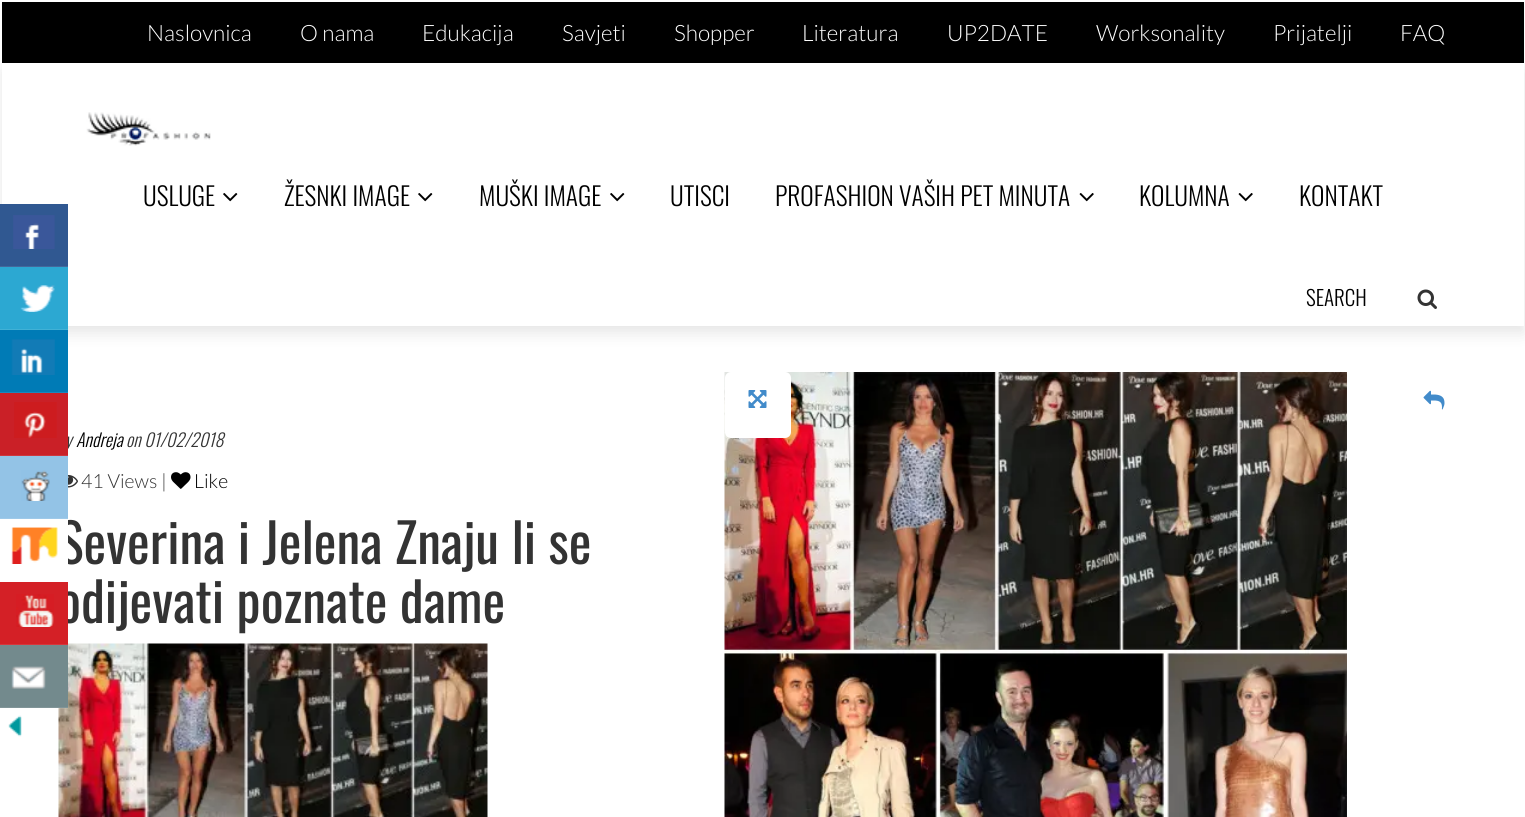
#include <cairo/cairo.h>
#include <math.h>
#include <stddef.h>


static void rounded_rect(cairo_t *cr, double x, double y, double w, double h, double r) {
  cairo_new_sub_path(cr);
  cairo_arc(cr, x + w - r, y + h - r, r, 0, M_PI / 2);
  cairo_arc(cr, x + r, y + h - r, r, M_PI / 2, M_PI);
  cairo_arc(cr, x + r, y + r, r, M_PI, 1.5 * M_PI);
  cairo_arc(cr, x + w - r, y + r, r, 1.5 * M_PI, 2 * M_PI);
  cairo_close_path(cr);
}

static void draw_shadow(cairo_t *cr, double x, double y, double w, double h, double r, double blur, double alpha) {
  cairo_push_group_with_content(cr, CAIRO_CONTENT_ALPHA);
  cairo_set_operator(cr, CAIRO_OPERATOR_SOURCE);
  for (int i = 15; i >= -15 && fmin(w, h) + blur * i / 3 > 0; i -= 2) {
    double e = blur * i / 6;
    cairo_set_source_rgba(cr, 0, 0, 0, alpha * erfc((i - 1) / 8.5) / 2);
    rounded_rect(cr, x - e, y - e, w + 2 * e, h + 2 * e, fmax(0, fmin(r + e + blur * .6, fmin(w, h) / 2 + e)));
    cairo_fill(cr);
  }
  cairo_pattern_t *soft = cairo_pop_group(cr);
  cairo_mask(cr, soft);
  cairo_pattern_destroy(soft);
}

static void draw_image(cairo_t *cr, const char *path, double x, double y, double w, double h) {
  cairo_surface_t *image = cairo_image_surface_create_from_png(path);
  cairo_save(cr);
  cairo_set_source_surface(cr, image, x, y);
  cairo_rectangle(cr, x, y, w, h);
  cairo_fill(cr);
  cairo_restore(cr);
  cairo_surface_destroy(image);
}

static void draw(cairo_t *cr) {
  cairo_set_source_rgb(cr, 1, 1, 1);
  cairo_paint(cr);
  cairo_set_source_rgb(cr, 0, 0, 0);
  cairo_rectangle(cr, 2, 2, 1522, 61);
  cairo_fill(cr);
  cairo_set_source_rgb(cr, 0, 0, 0);
  draw_shadow(cr, 2, 71, 1522, 262, 0, 7.5, 0.1);
  cairo_set_source_rgb(cr, 1, 1, 1);
  cairo_rectangle(cr, 2, 63, 1522, 263);
  cairo_fill(cr);
  cairo_set_source_rgb(cr, 48 / 255.0, 88 / 255.0, 145 / 255.0);
  cairo_rectangle(cr, 0, 204, 68, 63);
  cairo_fill(cr);
  cairo_set_source_rgba(cr, 1, 1, 1, 0.1);
  cairo_rectangle(cr, 0, 266, 68, 1);
  cairo_fill(cr);
  draw_image(cr, "images/1.png", 13, 215, 42, 34);
  cairo_set_source_rgb(cr, 44 / 255.0, 168 / 255.0, 210 / 255.0);
  cairo_rectangle(cr, 0, 267, 68, 63);
  cairo_fill(cr);
  cairo_set_source_rgba(cr, 1, 1, 1, 0.1);
  cairo_rectangle(cr, 0, 329, 68, 1);
  cairo_fill(cr);
  draw_image(cr, "images/2.png", 20, 285, 35, 27);
  cairo_set_source_rgb(cr, 0, 123 / 255.0, 182 / 255.0);
  cairo_rectangle(cr, 0, 330, 68, 62);
  cairo_fill(cr);
  cairo_set_source_rgb(cr, 26 / 255.0, 136 / 255.0, 189 / 255.0);
  cairo_rectangle(cr, 0, 392, 68, 1);
  cairo_fill(cr);
  draw_image(cr, "images/3.png", 11, 339, 44, 36);
  cairo_set_source_rgb(cr, 207 / 255.0, 54 / 255.0, 61 / 255.0);
  cairo_rectangle(cr, 0, 455, 68, 1);
  cairo_fill(cr);
  cairo_set_source_rgb(cr, 147 / 255.0, 195 / 255.0, 230 / 255.0);
  cairo_rectangle(cr, 0, 456, 68, 62);
  cairo_fill(cr);
  cairo_set_source_rgb(cr, 158 / 255.0, 201 / 255.0, 233 / 255.0);
  cairo_rectangle(cr, 0, 518, 68, 1);
  cairo_fill(cr);
  draw_image(cr, "images/5.png", 21, 470, 29, 31);
  draw_image(cr, "images/6.png", 11, 527, 47, 37);
  draw_image(cr, "images/17.png", 58, 643, 430, 174);
  cairo_set_source_rgb(cr, 115 / 255.0, 138 / 255.0, 141 / 255.0);
  cairo_rectangle(cr, 0, 645, 68, 63);
  cairo_fill(cr);
  cairo_set_source_rgba(cr, 1, 1, 1, 0.1);
  cairo_rectangle(cr, 0, 707, 68, 2);
  cairo_fill(cr);
  draw_image(cr, "images/8.png", 11, 666, 35, 23);
  draw_image(cr, "images/9.png", 8, 715, 14, 22);
  draw_image(cr, "images/10.png", 86, 112, 125, 34);
  draw_image(cr, "images/11.png", 223, 193, 15, 9);
  draw_image(cr, "images/11.png", 418, 193, 15, 9);
  draw_image(cr, "images/11.png", 610, 193, 15, 9);
  draw_image(cr, "images/12.png", 1079, 193, 15, 9);
  draw_image(cr, "images/12.png", 1238, 193, 15, 9);
  draw_image(cr, "images/13.png", 1417, 289, 20, 20);
  draw_image(cr, "images/14.png", 1423, 390, 22, 20);
  draw_image(cr, "images/15.png", 68, 475, 10, 13);
  draw_image(cr, "images/16.png", 171, 472, 20, 17);
  draw_image(cr, "images/18.png", 724, 372, 623, 445);
  cairo_set_source_rgb(cr, 1, 1, 1);
  rounded_rect(cr, 725, 372, 66, 66, 6);
  cairo_fill(cr);
  draw_image(cr, "images/19.png", 748, 390, 19, 18);
  cairo_select_font_face(cr, "Lato Light", CAIRO_FONT_SLANT_NORMAL, CAIRO_FONT_WEIGHT_NORMAL);
  cairo_set_font_size(cr, 22.5);
  cairo_move_to(cr, 147, 41);
  cairo_show_text(cr, "Naslovnica");
  cairo_move_to(cr, 300, 41);
  cairo_show_text(cr, "O nama");
  cairo_move_to(cr, 422, 41);
  cairo_show_text(cr, "Edukacija");
  cairo_move_to(cr, 562, 41);
  cairo_show_text(cr, "Savjeti");
  cairo_move_to(cr, 674, 41);
  cairo_show_text(cr, "Shopper");
  cairo_move_to(cr, 802, 41);
  cairo_show_text(cr, "Literatura");
  cairo_move_to(cr, 947, 41);
  cairo_show_text(cr, "UP2DATE");
  cairo_move_to(cr, 1096, 41);
  cairo_show_text(cr, "Worksonality");
  cairo_move_to(cr, 1273, 41);
  cairo_show_text(cr, "Prijatelji");
  cairo_move_to(cr, 1400, 41);
  cairo_show_text(cr, "FAQ");
  cairo_select_font_face(cr, "Oswald Light", CAIRO_FONT_SLANT_NORMAL, CAIRO_FONT_WEIGHT_NORMAL);
  cairo_set_font_size(cr, 25.5);
  cairo_set_source_rgb(cr, 0, 0, 0);
  cairo_move_to(cr, 143, 206);
  cairo_show_text(cr, "USLUGE");
  cairo_move_to(cr, 284, 206);
  cairo_show_text(cr, "ŽESNKI IMAGE");
  cairo_move_to(cr, 479, 206);
  cairo_show_text(cr, "MUŠKI IMAGE");
  cairo_move_to(cr, 670, 206);
  cairo_show_text(cr, "UTISCI");
  cairo_move_to(cr, 775, 206);
  cairo_show_text(cr, "PROFASHION VAŠIH PET MINUTA");
  cairo_move_to(cr, 1139, 206);
  cairo_show_text(cr, "KOLUMNA");
  cairo_move_to(cr, 1299, 206);
  cairo_show_text(cr, "KONTAKT");
  cairo_set_font_size(cr, 21);
  cairo_move_to(cr, 1306, 306);
  cairo_show_text(cr, "SEARCH");
  cairo_select_font_face(cr, "Oswald Light", CAIRO_FONT_SLANT_ITALIC, CAIRO_FONT_WEIGHT_NORMAL);
  cairo_set_font_size(cr, 18);
  cairo_set_source_rgb(cr, 51 / 255.0, 51 / 255.0, 51 / 255.0);
  cairo_move_to(cr, 65, 447);
  cairo_show_text(cr, "y");
  cairo_set_source_rgb(cr, 202 / 255.0, 32 / 255.0, 39 / 255.0);
  cairo_rectangle(cr, 0, 393, 68, 62);
  cairo_fill(cr);
  draw_image(cr, "images/4.png", 14, 402, 43, 36);
  cairo_set_source_rgb(cr, 0, 0, 0);
  cairo_move_to(cr, 76, 447);
  cairo_show_text(cr, "Andreja");
  cairo_set_source_rgb(cr, 51 / 255.0, 51 / 255.0, 51 / 255.0);
  cairo_move_to(cr, 126, 447);
  cairo_show_text(cr, "on 01/02/2018");
  cairo_select_font_face(cr, "Lato Light", CAIRO_FONT_SLANT_NORMAL, CAIRO_FONT_WEIGHT_NORMAL);
  cairo_set_font_size(cr, 19.5);
  cairo_move_to(cr, 81, 488);
  cairo_show_text(cr, "41 Views |");
  cairo_set_source_rgb(cr, 0, 0, 0);
  cairo_move_to(cr, 194, 488);
  cairo_show_text(cr, "Like");
  cairo_select_font_face(cr, "Oswald", CAIRO_FONT_SLANT_NORMAL, CAIRO_FONT_WEIGHT_NORMAL);
  cairo_set_font_size(cr, 54);
  cairo_set_source_rgb(cr, 51 / 255.0, 51 / 255.0, 51 / 255.0);
  cairo_move_to(cr, 58, 564);
  cairo_show_text(cr, "Severina i Jelena Znaju li se");
  cairo_set_source_rgb(cr, 1, 1, 1);
  cairo_rectangle(cr, 59, 520, 9, 44);
  cairo_fill(cr);
  cairo_set_source_rgb(cr, 51 / 255.0, 51 / 255.0, 51 / 255.0);
  cairo_move_to(cr, 58, 623);
  cairo_show_text(cr, "odijevati poznate dame");
  cairo_set_source_rgb(cr, 212 / 255.0, 32 / 255.0, 38 / 255.0);
  cairo_rectangle(cr, 0, 582, 68, 63);
  cairo_fill(cr);
  draw_image(cr, "images/7.png", 16, 594, 38, 33);
  cairo_set_source_rgba(cr, 1, 1, 1, 0.1);
  cairo_rectangle(cr, 0, 644, 68, 1);
  cairo_fill(cr);
}

int main(void) {
  cairo_surface_t *surface = cairo_image_surface_create(CAIRO_FORMAT_RGB24, 1525, 817);
  cairo_t *cr = cairo_create(surface);
  cairo_font_options_t *options = cairo_font_options_create();
  cairo_font_options_set_hint_metrics(options, CAIRO_HINT_METRICS_OFF);
  cairo_font_options_set_hint_style(options, CAIRO_HINT_STYLE_NONE);
  cairo_set_font_options(cr, options);
  cairo_set_miter_limit(cr, 4);
  draw(cr);
  cairo_surface_write_to_png(surface, "out.png");
  cairo_font_options_destroy(options);
  cairo_destroy(cr);
  cairo_surface_destroy(surface);
  return 0;
}
